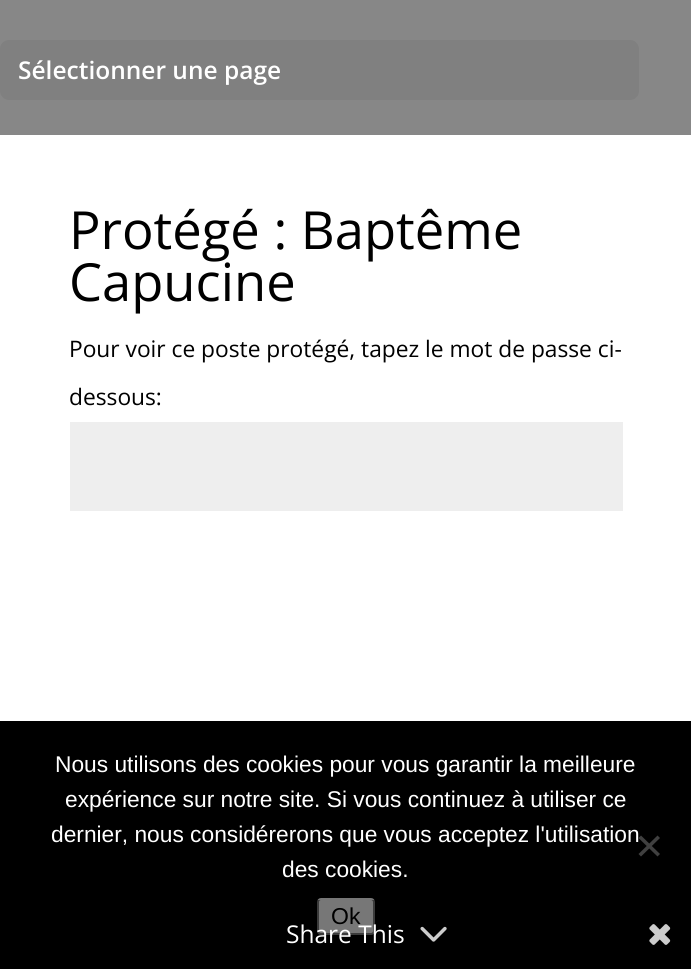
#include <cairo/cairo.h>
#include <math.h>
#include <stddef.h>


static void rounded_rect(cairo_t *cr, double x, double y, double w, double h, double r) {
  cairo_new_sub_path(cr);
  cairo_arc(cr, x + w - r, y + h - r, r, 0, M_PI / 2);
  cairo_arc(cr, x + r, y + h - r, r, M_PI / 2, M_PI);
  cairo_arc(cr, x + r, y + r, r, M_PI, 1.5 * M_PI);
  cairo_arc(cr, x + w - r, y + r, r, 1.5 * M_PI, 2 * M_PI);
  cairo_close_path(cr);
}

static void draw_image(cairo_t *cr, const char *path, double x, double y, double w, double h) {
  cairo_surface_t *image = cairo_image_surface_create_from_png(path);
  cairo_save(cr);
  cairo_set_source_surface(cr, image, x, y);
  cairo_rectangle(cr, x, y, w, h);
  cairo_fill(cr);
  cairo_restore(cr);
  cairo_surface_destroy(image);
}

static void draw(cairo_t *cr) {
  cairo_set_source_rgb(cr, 1, 1, 1);
  cairo_paint(cr);
  cairo_set_source_rgb(cr, 135 / 255.0, 135 / 255.0, 135 / 255.0);
  cairo_rectangle(cr, 0, 0, 691, 135);
  cairo_fill(cr);
  cairo_set_source_rgb(cr, 128 / 255.0, 128 / 255.0, 128 / 255.0);
  rounded_rect(cr, 0, 40, 639, 60, 9);
  cairo_fill(cr);
  cairo_set_source_rgb(cr, 238 / 255.0, 238 / 255.0, 238 / 255.0);
  cairo_rectangle(cr, 70, 422, 553, 89);
  cairo_fill(cr);
  cairo_set_source_rgb(cr, 0, 0, 0);
  cairo_rectangle(cr, 0, 721, 691, 248);
  cairo_fill(cr);
  cairo_set_source_rgb(cr, 239 / 255.0, 239 / 255.0, 239 / 255.0);
  rounded_rect(cr, 318, 899, 56, 35, 3);
  cairo_fill_preserve(cr);
  cairo_set_source_rgb(cr, 118 / 255.0, 118 / 255.0, 118 / 255.0);
  cairo_stroke(cr);
  draw_image(cr, "images/1.png", 420, 926, 27, 16);
  draw_image(cr, "images/2.png", 649, 924, 22, 21);
  cairo_select_font_face(cr, "Open Sans SemiBold", CAIRO_FONT_SLANT_NORMAL, CAIRO_FONT_WEIGHT_NORMAL);
  cairo_set_font_size(cr, 24.5);
  cairo_set_source_rgb(cr, 1, 1, 1);
  cairo_move_to(cr, 18, 79);
  cairo_show_text(cr, "Sélectionner une page");
  cairo_select_font_face(cr, "Open Sans", CAIRO_FONT_SLANT_NORMAL, CAIRO_FONT_WEIGHT_NORMAL);
  cairo_set_font_size(cr, 52.5);
  cairo_set_source_rgb(cr, 0, 0, 0);
  cairo_move_to(cr, 69, 249);
  cairo_show_text(cr, "Protégé : Baptême");
  cairo_move_to(cr, 69, 301);
  cairo_show_text(cr, "Capucine");
  cairo_set_font_size(cr, 22.75);
  cairo_move_to(cr, 69, 357);
  cairo_show_text(cr, "Pour voir ce poste protégé, tapez le mot de passe ci-");
  cairo_move_to(cr, 69, 405);
  cairo_show_text(cr, "dessous:");
  cairo_select_font_face(cr, "Liberation Sans", CAIRO_FONT_SLANT_NORMAL, CAIRO_FONT_WEIGHT_NORMAL);
  cairo_set_source_rgb(cr, 1, 1, 1);
  cairo_move_to(cr, 55, 772);
  cairo_show_text(cr, "Nous utilisons des cookies pour vous garantir la meilleure");
  cairo_move_to(cr, 65, 807);
  cairo_show_text(cr, "expérience sur notre site. Si vous continuez à utiliser ce");
  cairo_move_to(cr, 51, 842);
  cairo_show_text(cr, "dernier, nous considérerons que vous acceptez l'utilisation");
  cairo_move_to(cr, 282, 877);
  cairo_show_text(cr, "des cookies.");
  cairo_set_source_rgb(cr, 64 / 255.0, 64 / 255.0, 64 / 255.0);
  cairo_new_path(cr);
  cairo_move_to(cr, 657.5, 835.5);
  cairo_line_to(cr, 660, 838);
  cairo_line_to(cr, 641, 856.5);
  cairo_line_to(cr, 638.5, 854);
  cairo_close_path(cr);
  cairo_fill(cr);
  cairo_new_path(cr);
  cairo_move_to(cr, 638.5, 838);
  cairo_line_to(cr, 641, 835.5);
  cairo_line_to(cr, 660, 854);
  cairo_line_to(cr, 657.5, 856.5);
  cairo_close_path(cr);
  cairo_fill(cr);
  cairo_set_font_size(cr, 23);
  cairo_set_source_rgb(cr, 0, 0, 0);
  cairo_move_to(cr, 331, 924);
  cairo_show_text(cr, "Ok");
  cairo_set_source_rgba(cr, 0, 0, 0, 0.5);
  cairo_rectangle(cr, 317, 900, 58, 35);
  cairo_fill(cr);
  cairo_select_font_face(cr, "Open Sans", CAIRO_FONT_SLANT_NORMAL, CAIRO_FONT_WEIGHT_NORMAL);
  cairo_set_font_size(cr, 24.5);
  cairo_set_source_rgb(cr, 1, 1, 1);
  cairo_move_to(cr, 286, 943);
  cairo_show_text(cr, "Share This");
}

int main(void) {
  cairo_surface_t *surface = cairo_image_surface_create(CAIRO_FORMAT_RGB24, 691, 969);
  cairo_t *cr = cairo_create(surface);
  cairo_font_options_t *options = cairo_font_options_create();
  cairo_font_options_set_hint_metrics(options, CAIRO_HINT_METRICS_OFF);
  cairo_font_options_set_hint_style(options, CAIRO_HINT_STYLE_NONE);
  cairo_set_font_options(cr, options);
  cairo_set_miter_limit(cr, 4);
  draw(cr);
  cairo_surface_write_to_png(surface, "out.png");
  cairo_font_options_destroy(options);
  cairo_destroy(cr);
  cairo_surface_destroy(surface);
  return 0;
}
